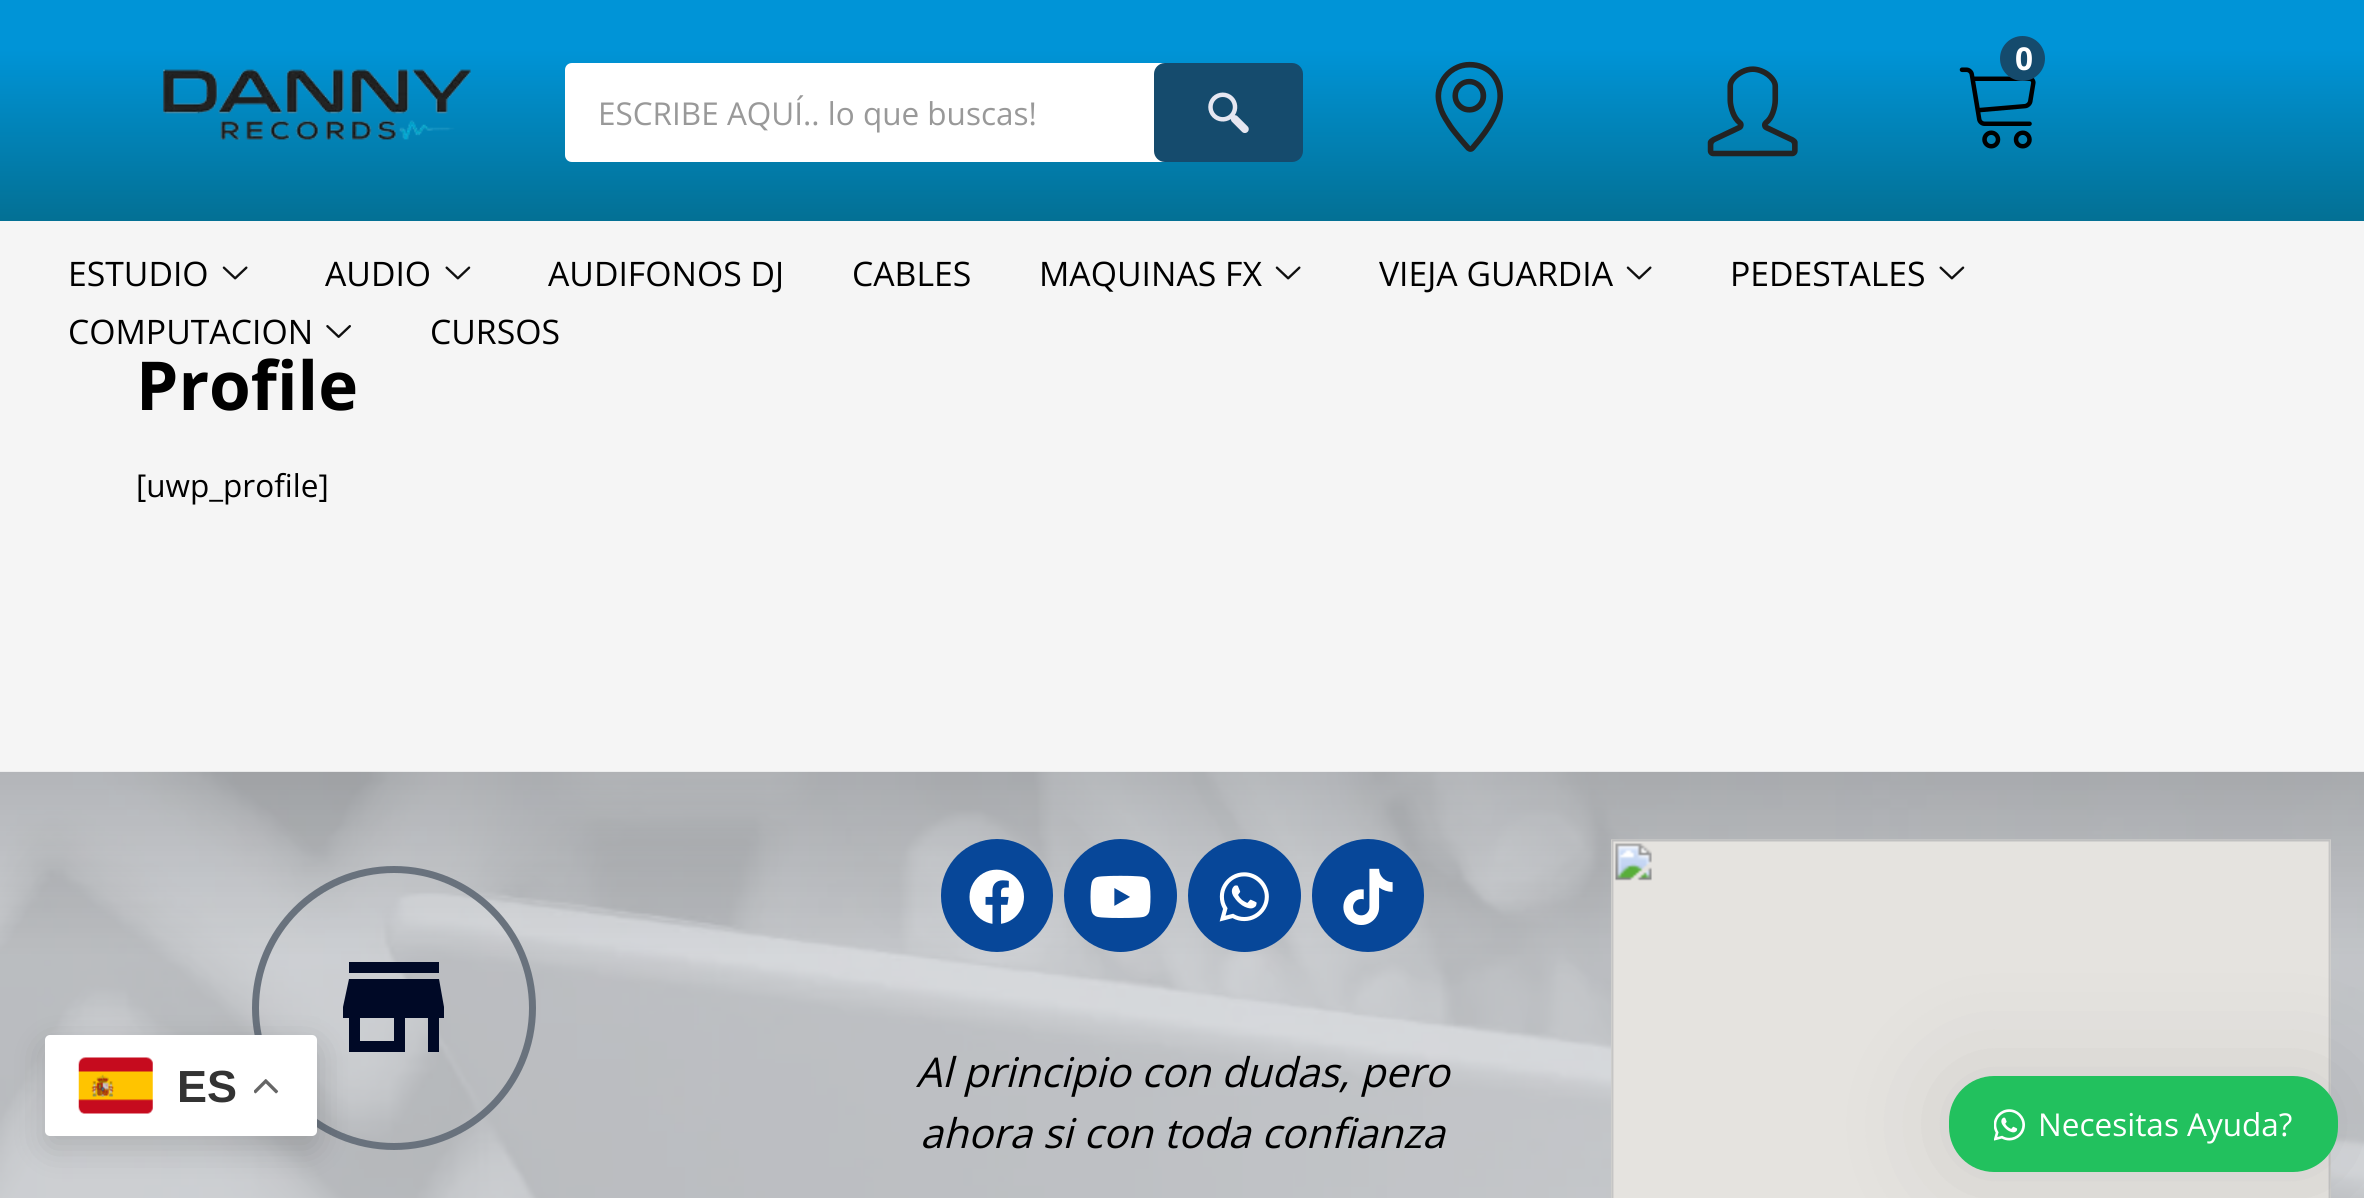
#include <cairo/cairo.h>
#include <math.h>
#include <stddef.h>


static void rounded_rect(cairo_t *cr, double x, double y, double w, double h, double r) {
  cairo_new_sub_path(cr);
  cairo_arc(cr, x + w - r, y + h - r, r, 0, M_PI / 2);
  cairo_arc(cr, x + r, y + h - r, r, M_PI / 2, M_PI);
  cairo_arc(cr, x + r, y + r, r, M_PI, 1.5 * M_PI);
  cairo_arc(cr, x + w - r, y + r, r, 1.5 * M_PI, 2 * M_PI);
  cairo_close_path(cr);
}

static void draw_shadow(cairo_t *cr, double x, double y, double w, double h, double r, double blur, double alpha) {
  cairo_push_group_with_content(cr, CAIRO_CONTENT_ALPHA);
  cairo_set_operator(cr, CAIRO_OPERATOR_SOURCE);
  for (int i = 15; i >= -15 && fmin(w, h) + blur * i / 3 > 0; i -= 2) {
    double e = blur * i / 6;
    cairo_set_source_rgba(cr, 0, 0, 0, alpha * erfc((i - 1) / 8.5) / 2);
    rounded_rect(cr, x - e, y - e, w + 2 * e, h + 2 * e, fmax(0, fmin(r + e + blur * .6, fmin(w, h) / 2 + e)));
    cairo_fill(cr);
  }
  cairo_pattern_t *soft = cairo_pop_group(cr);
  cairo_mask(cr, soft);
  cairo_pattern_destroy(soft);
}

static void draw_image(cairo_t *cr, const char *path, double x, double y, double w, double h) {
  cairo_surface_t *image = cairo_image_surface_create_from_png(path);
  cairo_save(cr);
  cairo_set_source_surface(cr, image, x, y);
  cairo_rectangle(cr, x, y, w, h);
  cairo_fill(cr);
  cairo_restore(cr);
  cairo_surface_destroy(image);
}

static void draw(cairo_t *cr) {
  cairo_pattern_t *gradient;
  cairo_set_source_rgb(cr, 245 / 255.0, 245 / 255.0, 245 / 255.0);
  cairo_paint(cr);
  gradient = cairo_pattern_create_linear(1182, 0, 1182, 221);
  cairo_pattern_add_color_stop_rgba(gradient, 0.22, 0, 148 / 255.0, 215 / 255.0, 1);
  cairo_pattern_add_color_stop_rgba(gradient, 1, 3 / 255.0, 112 / 255.0, 148 / 255.0, 1);
  cairo_set_source(cr, gradient);
  cairo_pattern_destroy(gradient);
  cairo_rectangle(cr, 0, 0, 2364, 221);
  cairo_fill(cr);
  draw_image(cr, "images/1.png", 163, 69, 308, 71);
  cairo_set_source_rgb(cr, 1, 1, 1);
  rounded_rect(cr, 565, 63, 738, 99, 49.5);
  cairo_fill(cr);
  cairo_new_path(cr);
  cairo_move_to(cr, 572, 63);
  cairo_line_to(cr, 1154, 63);
  cairo_line_to(cr, 1154, 162);
  cairo_line_to(cr, 572, 162);
  cairo_curve_to(cr, 568, 162, 565, 159, 565, 155);
  cairo_line_to(cr, 565, 70);
  cairo_curve_to(cr, 565, 66, 568, 63, 572, 63);
  cairo_close_path(cr);
  cairo_fill(cr);
  cairo_set_source_rgb(cr, 21 / 255.0, 75 / 255.0, 109 / 255.0);
  rounded_rect(cr, 1154, 63, 149, 99, 11);
  cairo_fill(cr);
  draw_image(cr, "images/2.png", 1208, 92, 41, 41);
  draw_image(cr, "images/3.png", 1435, 61, 68, 91);
  draw_image(cr, "images/4.png", 1707, 66, 91, 91);
  draw_image(cr, "images/5.png", 1959, 67, 77, 82);
  cairo_arc(cr, 2022.5, 58.5, 22.5, 0, 2 * M_PI);
  cairo_fill(cr);
  draw_image(cr, "images/6.png", 222, 266, 26, 14);
  draw_image(cr, "images/7.png", 445, 266, 26, 14);
  draw_image(cr, "images/6.png", 1275, 266, 26, 14);
  draw_image(cr, "images/6.png", 1626, 266, 26, 14);
  draw_image(cr, "images/7.png", 1939, 266, 26, 14);
  draw_image(cr, "images/8.png", 326, 325, 25, 13);
  gradient = cairo_pattern_create_linear(1182, 772, 1182, 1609);
  cairo_pattern_add_color_stop_rgba(gradient, 0, 200 / 255.0, 200 / 255.0, 200 / 255.0, 1);
  cairo_pattern_add_color_stop_rgba(gradient, 0.22, 236 / 255.0, 236 / 255.0, 236 / 255.0, 1);
  cairo_set_source(cr, gradient);
  cairo_pattern_destroy(gradient);
  cairo_rectangle(cr, 0, 772, 2364, 426);
  cairo_fill(cr);
  draw_image(cr, "images/11.png", 0, 771, 2364, 427);
  cairo_arc(cr, 394, 1008, 138.5, 0, 2 * M_PI);
  cairo_set_source_rgb(cr, 105 / 255.0, 114 / 255.0, 125 / 255.0);
  cairo_set_line_width(cr, 7);
  cairo_stroke(cr);
  cairo_set_source_rgb(cr, 0, 9 / 255.0, 38 / 255.0);
  cairo_new_path(cr);
  cairo_move_to(cr, 439, 962);
  cairo_line_to(cr, 439, 973);
  cairo_line_to(cr, 349, 973);
  cairo_line_to(cr, 349, 962);
  cairo_close_path(cr);
  cairo_move_to(cr, 444, 1018);
  cairo_line_to(cr, 439, 1018);
  cairo_line_to(cr, 439, 1052);
  cairo_line_to(cr, 428, 1052);
  cairo_line_to(cr, 428, 1018);
  cairo_line_to(cr, 405, 1018);
  cairo_line_to(cr, 405, 1052);
  cairo_line_to(cr, 349, 1052);
  cairo_line_to(cr, 349, 1018);
  cairo_line_to(cr, 343, 1018);
  cairo_line_to(cr, 343, 1007);
  cairo_line_to(cr, 349, 979);
  cairo_line_to(cr, 439, 979);
  cairo_line_to(cr, 444, 1007);
  cairo_close_path(cr);
  cairo_move_to(cr, 394, 1041);
  cairo_line_to(cr, 394, 1018);
  cairo_line_to(cr, 360, 1018);
  cairo_line_to(cr, 360, 1041);
  cairo_close_path(cr);
  cairo_fill(cr);
  cairo_set_source_rgb(cr, 0, 0, 0);
  draw_shadow(cr, 45, 1046, 272, 102, 5, 17, 0.15);
  cairo_set_source_rgb(cr, 1, 1, 1);
  rounded_rect(cr, 45, 1035, 272, 101, 5);
  cairo_fill(cr);
  draw_image(cr, "images/9.png", 78, 1057, 75, 57);
  draw_image(cr, "images/10.png", 254, 1079, 25, 15);
  cairo_set_source_rgb(cr, 7 / 255.0, 71 / 255.0, 153 / 255.0);
  rounded_rect(cr, 941, 839, 112, 113, 56);
  cairo_fill(cr);
  draw_image(cr, "images/12.png", 969, 869, 55, 55);
  cairo_arc(cr, 1120.5, 895.5, 56.5, 0, 2 * M_PI);
  cairo_fill(cr);
  draw_image(cr, "images/13.png", 1090, 875, 61, 43);
  cairo_arc(cr, 1244.5, 895.5, 56.5, 0, 2 * M_PI);
  cairo_fill(cr);
  draw_image(cr, "images/14.png", 1219, 872, 50, 50);
  rounded_rect(cr, 1312, 839, 112, 113, 56);
  cairo_fill(cr);
  draw_image(cr, "images/15.png", 1343, 868, 50, 57);
  draw_image(cr, "images/16.png", 1611, 839, 720, 359);
  cairo_set_source_rgb(cr, 0, 0, 0);
  draw_shadow(cr, 1949, 1076, 389, 96, 45, 56, 0.1);
  cairo_set_source_rgb(cr, 34 / 255.0, 193 / 255.0, 94 / 255.0);
  rounded_rect(cr, 1949, 1076, 389, 96, 45);
  cairo_fill(cr);
  draw_image(cr, "images/17.png", 1994, 1109, 31, 32);
  cairo_select_font_face(cr, "Open Sans", CAIRO_FONT_SLANT_NORMAL, CAIRO_FONT_WEIGHT_NORMAL);
  cairo_set_font_size(cr, 31.5);
  cairo_set_source_rgb(cr, 153 / 255.0, 153 / 255.0, 153 / 255.0);
  cairo_move_to(cr, 598, 125);
  cairo_show_text(cr, "ESCRIBE AQUÍ.. lo que buscas!");
  cairo_select_font_face(cr, "Open Sans", CAIRO_FONT_SLANT_NORMAL, CAIRO_FONT_WEIGHT_BOLD);
  cairo_set_source_rgb(cr, 1, 1, 1);
  cairo_move_to(cr, 2015, 70);
  cairo_show_text(cr, "0");
  cairo_select_font_face(cr, "Open Sans", CAIRO_FONT_SLANT_NORMAL, CAIRO_FONT_WEIGHT_NORMAL);
  cairo_set_font_size(cr, 33.75);
  cairo_set_source_rgb(cr, 0, 0, 0);
  cairo_move_to(cr, 68, 286);
  cairo_show_text(cr, "ESTUDIO");
  cairo_move_to(cr, 325, 286);
  cairo_show_text(cr, "AUDIO");
  cairo_move_to(cr, 548, 286);
  cairo_show_text(cr, "AUDIFONOS DJ");
  cairo_move_to(cr, 852, 286);
  cairo_show_text(cr, "CABLES");
  cairo_move_to(cr, 1039, 286);
  cairo_show_text(cr, "MAQUINAS FX");
  cairo_move_to(cr, 1379, 286);
  cairo_show_text(cr, "VIEJA GUARDIA");
  cairo_move_to(cr, 1730, 286);
  cairo_show_text(cr, "PEDESTALES");
  cairo_move_to(cr, 68, 344);
  cairo_show_text(cr, "COMPUTACION");
  cairo_move_to(cr, 430, 344);
  cairo_show_text(cr, "CURSOS");
  cairo_select_font_face(cr, "Open Sans", CAIRO_FONT_SLANT_NORMAL, CAIRO_FONT_WEIGHT_BOLD);
  cairo_set_font_size(cr, 67.5);
  cairo_move_to(cr, 136, 410);
  cairo_show_text(cr, "Profile");
  cairo_select_font_face(cr, "Open Sans", CAIRO_FONT_SLANT_NORMAL, CAIRO_FONT_WEIGHT_NORMAL);
  cairo_set_font_size(cr, 31.5);
  cairo_move_to(cr, 136, 497);
  cairo_show_text(cr, "[uwp_profile]");
  cairo_select_font_face(cr, "Liberation Sans", CAIRO_FONT_SLANT_NORMAL, CAIRO_FONT_WEIGHT_BOLD);
  cairo_set_font_size(cr, 45);
  cairo_set_source_rgb(cr, 51 / 255.0, 51 / 255.0, 51 / 255.0);
  cairo_move_to(cr, 177, 1102);
  cairo_show_text(cr, "ES");
  cairo_select_font_face(cr, "Open Sans", CAIRO_FONT_SLANT_ITALIC, CAIRO_FONT_WEIGHT_NORMAL);
  cairo_set_font_size(cr, 41);
  cairo_set_source_rgb(cr, 0, 0, 0);
  cairo_move_to(cr, 916, 1087);
  cairo_show_text(cr, "Al principio con dudas, pero");
  cairo_move_to(cr, 920, 1148);
  cairo_show_text(cr, "ahora si con toda confianza");
  cairo_select_font_face(cr, "Open Sans", CAIRO_FONT_SLANT_NORMAL, CAIRO_FONT_WEIGHT_NORMAL);
  cairo_set_font_size(cr, 31.5);
  cairo_set_source_rgb(cr, 1, 1, 1);
  cairo_move_to(cr, 2038, 1136);
  cairo_show_text(cr, "Necesitas Ayuda?");
}

int main(void) {
  cairo_surface_t *surface = cairo_image_surface_create(CAIRO_FORMAT_RGB24, 2364, 1198);
  cairo_t *cr = cairo_create(surface);
  cairo_font_options_t *options = cairo_font_options_create();
  cairo_font_options_set_hint_metrics(options, CAIRO_HINT_METRICS_OFF);
  cairo_font_options_set_hint_style(options, CAIRO_HINT_STYLE_NONE);
  cairo_set_font_options(cr, options);
  cairo_set_miter_limit(cr, 4);
  draw(cr);
  cairo_surface_write_to_png(surface, "out.png");
  cairo_font_options_destroy(options);
  cairo_destroy(cr);
  cairo_surface_destroy(surface);
  return 0;
}
